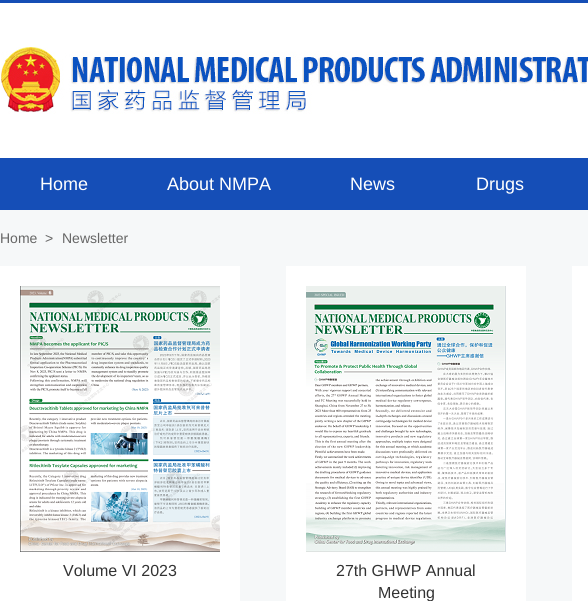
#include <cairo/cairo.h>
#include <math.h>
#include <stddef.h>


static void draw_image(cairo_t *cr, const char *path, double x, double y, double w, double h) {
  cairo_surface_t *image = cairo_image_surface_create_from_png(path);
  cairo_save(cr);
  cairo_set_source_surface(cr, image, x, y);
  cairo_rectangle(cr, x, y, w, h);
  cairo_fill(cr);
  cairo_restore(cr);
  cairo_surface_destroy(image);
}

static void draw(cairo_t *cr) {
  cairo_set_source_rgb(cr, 246 / 255.0, 248 / 255.0, 249 / 255.0);
  cairo_paint(cr);
  cairo_set_source_rgb(cr, 21 / 255.0, 78 / 255.0, 181 / 255.0);
  cairo_rectangle(cr, 0, 0, 588, 3);
  cairo_fill(cr);
  cairo_set_source_rgb(cr, 1, 1, 1);
  cairo_rectangle(cr, 0, 3, 588, 155);
  cairo_fill(cr);
  draw_image(cr, "images/1.png", 1, 47, 587, 67);
  cairo_set_source_rgb(cr, 21 / 255.0, 78 / 255.0, 183 / 255.0);
  cairo_rectangle(cr, 0, 158, 588, 52);
  cairo_fill(cr);
  cairo_set_source_rgb(cr, 1, 1, 1);
  cairo_rectangle(cr, 0, 266, 240, 335);
  cairo_fill(cr);
  draw_image(cr, "images/2.png", 20, 286, 200, 266);
  cairo_rectangle(cr, 286, 266, 240, 335);
  cairo_fill(cr);
  draw_image(cr, "images/3.png", 306, 286, 200, 266);
  cairo_rectangle(cr, 572, 266, 16, 335);
  cairo_fill(cr);
  cairo_select_font_face(cr, "Liberation Sans", CAIRO_FONT_SLANT_NORMAL, CAIRO_FONT_WEIGHT_NORMAL);
  cairo_set_font_size(cr, 18);
  cairo_move_to(cr, 40, 190);
  cairo_show_text(cr, "Home");
  cairo_move_to(cr, 167, 190);
  cairo_show_text(cr, "About NMPA");
  cairo_move_to(cr, 350, 190);
  cairo_show_text(cr, "News");
  cairo_move_to(cr, 476, 190);
  cairo_show_text(cr, "Drugs");
  cairo_set_font_size(cr, 14);
  cairo_set_source_rgb(cr, 102 / 255.0, 102 / 255.0, 102 / 255.0);
  cairo_move_to(cr, 0, 243);
  cairo_show_text(cr, "Home");
  cairo_move_to(cr, 45, 243);
  cairo_show_text(cr, ">");
  cairo_move_to(cr, 62, 243);
  cairo_show_text(cr, "Newsletter");
  cairo_set_font_size(cr, 16);
  cairo_set_source_rgb(cr, 51 / 255.0, 51 / 255.0, 51 / 255.0);
  cairo_move_to(cr, 63, 576);
  cairo_show_text(cr, "Volume VI 2023");
  cairo_move_to(cr, 336, 576);
  cairo_show_text(cr, "27th GHWP Annual");
  cairo_move_to(cr, 378, 598);
  cairo_show_text(cr, "Meeting");
}

int main(void) {
  cairo_surface_t *surface = cairo_image_surface_create(CAIRO_FORMAT_RGB24, 588, 601);
  cairo_t *cr = cairo_create(surface);
  cairo_font_options_t *options = cairo_font_options_create();
  cairo_font_options_set_hint_metrics(options, CAIRO_HINT_METRICS_OFF);
  cairo_font_options_set_hint_style(options, CAIRO_HINT_STYLE_NONE);
  cairo_set_font_options(cr, options);
  cairo_set_miter_limit(cr, 4);
  draw(cr);
  cairo_surface_write_to_png(surface, "out.png");
  cairo_font_options_destroy(options);
  cairo_destroy(cr);
  cairo_surface_destroy(surface);
  return 0;
}
